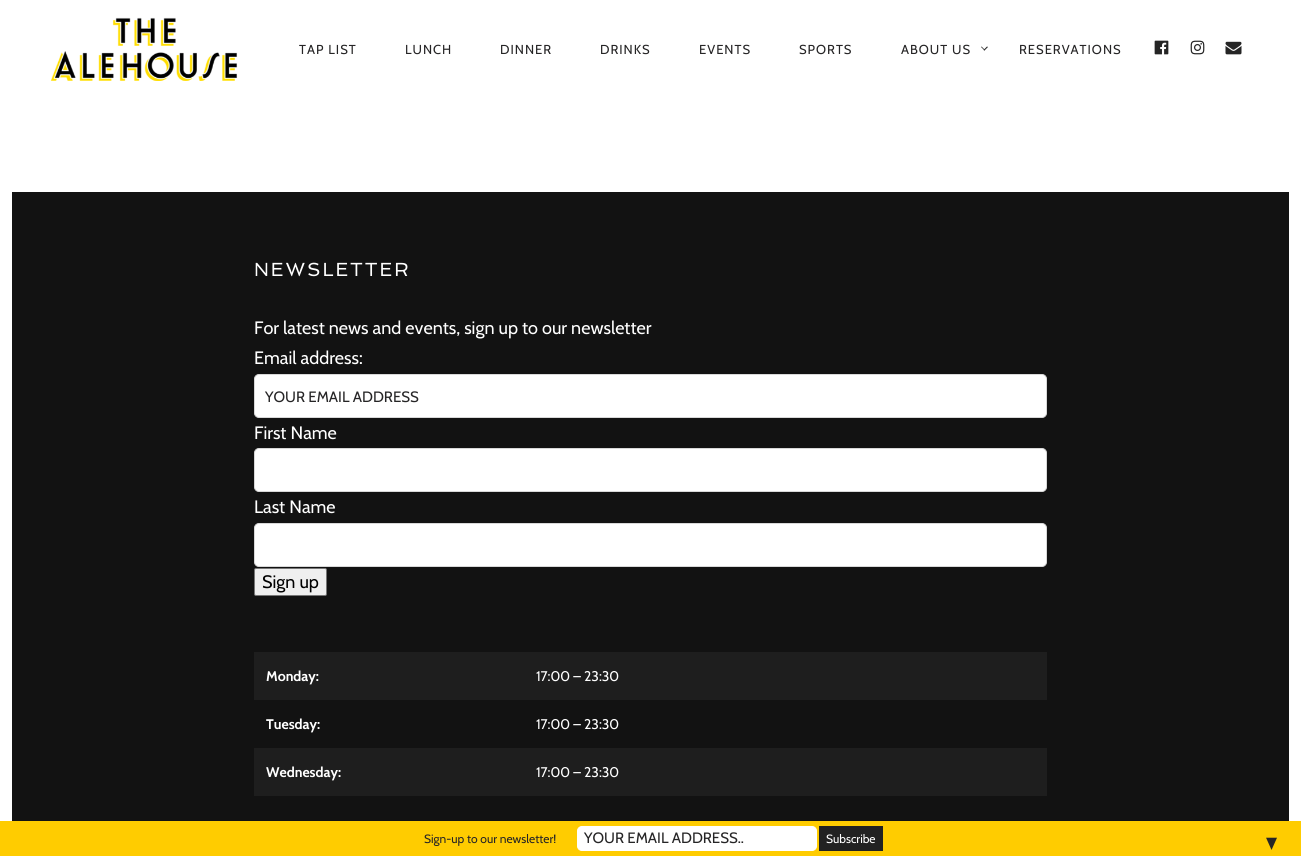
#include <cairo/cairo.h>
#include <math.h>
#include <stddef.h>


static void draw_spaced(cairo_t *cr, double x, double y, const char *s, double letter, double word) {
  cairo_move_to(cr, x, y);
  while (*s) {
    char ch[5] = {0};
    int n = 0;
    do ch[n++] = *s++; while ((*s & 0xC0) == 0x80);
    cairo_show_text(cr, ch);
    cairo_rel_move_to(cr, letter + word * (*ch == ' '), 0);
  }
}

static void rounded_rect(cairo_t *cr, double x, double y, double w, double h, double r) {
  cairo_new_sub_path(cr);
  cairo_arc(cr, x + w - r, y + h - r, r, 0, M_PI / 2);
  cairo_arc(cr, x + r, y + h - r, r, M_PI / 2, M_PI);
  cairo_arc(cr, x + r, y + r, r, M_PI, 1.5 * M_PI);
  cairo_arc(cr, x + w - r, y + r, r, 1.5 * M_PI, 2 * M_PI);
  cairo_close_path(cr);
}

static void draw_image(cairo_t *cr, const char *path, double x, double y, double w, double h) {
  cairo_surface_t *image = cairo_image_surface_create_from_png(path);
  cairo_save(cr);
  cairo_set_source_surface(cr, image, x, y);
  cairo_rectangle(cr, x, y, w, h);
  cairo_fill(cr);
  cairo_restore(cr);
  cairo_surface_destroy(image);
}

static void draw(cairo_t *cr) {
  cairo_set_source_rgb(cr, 1, 1, 1);
  cairo_paint(cr);
  draw_image(cr, "images/1.png", 50, 17, 188, 64);
  cairo_set_source_rgb(cr, 37 / 255.0, 37 / 255.0, 37 / 255.0);
  cairo_new_path(cr);
  cairo_move_to(cr, 987, 46.5);
  cairo_line_to(cr, 988, 47);
  cairo_line_to(cr, 984.5, 50.5);
  cairo_line_to(cr, 983.5, 50);
  cairo_close_path(cr);
  cairo_fill(cr);
  cairo_new_path(cr);
  cairo_move_to(cr, 981.5, 46.5);
  cairo_line_to(cr, 985, 50);
  cairo_line_to(cr, 984.5, 50.5);
  cairo_line_to(cr, 981, 47);
  cairo_close_path(cr);
  cairo_fill(cr);
  draw_image(cr, "images/2.png", 1154, 40, 15, 15);
  draw_image(cr, "images/3.png", 1190, 40, 15, 15);
  draw_image(cr, "images/4.png", 1225, 41, 17, 14);
  cairo_set_source_rgb(cr, 18 / 255.0, 18 / 255.0, 18 / 255.0);
  cairo_rectangle(cr, 12, 192, 1277, 629);
  cairo_fill(cr);
  cairo_set_source_rgb(cr, 1, 1, 1);
  rounded_rect(cr, 254.5, 374.5, 792, 43, 4.5);
  cairo_fill_preserve(cr);
  cairo_set_source_rgb(cr, 216 / 255.0, 216 / 255.0, 216 / 255.0);
  cairo_set_line_width(cr, 1);
  cairo_stroke(cr);
  cairo_set_source_rgb(cr, 1, 1, 1);
  rounded_rect(cr, 254.5, 448.5, 792, 43, 4.5);
  cairo_fill_preserve(cr);
  cairo_set_source_rgb(cr, 216 / 255.0, 216 / 255.0, 216 / 255.0);
  cairo_stroke(cr);
  cairo_set_source_rgb(cr, 1, 1, 1);
  rounded_rect(cr, 254.5, 523.5, 792, 43, 4.5);
  cairo_fill_preserve(cr);
  cairo_set_source_rgb(cr, 216 / 255.0, 216 / 255.0, 216 / 255.0);
  cairo_stroke(cr);
  cairo_set_source_rgb(cr, 239 / 255.0, 239 / 255.0, 239 / 255.0);
  rounded_rect(cr, 254.5, 568.5, 72, 27, 1.5);
  cairo_fill_preserve(cr);
  cairo_set_source_rgb(cr, 118 / 255.0, 118 / 255.0, 118 / 255.0);
  cairo_stroke(cr);
  cairo_set_source_rgb(cr, 30 / 255.0, 30 / 255.0, 30 / 255.0);
  cairo_rectangle(cr, 254, 652, 793, 48);
  cairo_fill(cr);
  cairo_rectangle(cr, 254, 748, 793, 48);
  cairo_fill(cr);
  cairo_set_source_rgb(cr, 1, 204 / 255.0, 0);
  cairo_rectangle(cr, 0, 821, 1301, 35);
  cairo_fill(cr);
  cairo_set_source_rgb(cr, 1, 1, 1);
  rounded_rect(cr, 577.5, 826.5, 239, 24, 4.5);
  cairo_fill_preserve(cr);
  cairo_stroke(cr);
  cairo_set_source_rgb(cr, 34 / 255.0, 34 / 255.0, 34 / 255.0);
  cairo_rectangle(cr, 819, 826, 64, 25);
  cairo_fill(cr);
  cairo_select_font_face(cr, "Cabin", CAIRO_FONT_SLANT_NORMAL, CAIRO_FONT_WEIGHT_NORMAL);
  cairo_set_font_size(cr, 13);
  cairo_set_source_rgb(cr, 38 / 255.0, 37 / 255.0, 38 / 255.0);
  draw_spaced(cr, 299, 54, "TAP LIST", 1, 0);
  draw_spaced(cr, 405, 54, "LUNCH", 1, 0);
  draw_spaced(cr, 500, 54, "DINNER", 1, 0);
  draw_spaced(cr, 600, 54, "DRINKS", 1, 0);
  draw_spaced(cr, 699, 54, "EVENTS", 1, 0);
  draw_spaced(cr, 799, 54, "SPORTS", 1, 0);
  draw_spaced(cr, 901, 54, "ABOUT US", 1, 0);
  draw_spaced(cr, 1019, 54, "RESERVATIONS", 1, 0);
  cairo_select_font_face(cr, "Spinnaker", CAIRO_FONT_SLANT_NORMAL, CAIRO_FONT_WEIGHT_NORMAL);
  cairo_set_font_size(cr, 19);
  cairo_set_source_rgb(cr, 1, 1, 1);
  draw_spaced(cr, 254, 276, "NEWSLETTER", 1.9, 0);
  cairo_select_font_face(cr, "Cabin", CAIRO_FONT_SLANT_NORMAL, CAIRO_FONT_WEIGHT_NORMAL);
  cairo_set_font_size(cr, 18);
  cairo_move_to(cr, 254, 334);
  cairo_show_text(cr, "For latest news and events, sign up to our newsletter");
  cairo_move_to(cr, 254, 364);
  cairo_show_text(cr, "Email address:");
  cairo_set_font_size(cr, 15);
  cairo_set_source_rgb(cr, 38 / 255.0, 37 / 255.0, 38 / 255.0);
  cairo_move_to(cr, 265, 402);
  cairo_show_text(cr, "YOUR EMAIL ADDRESS");
  cairo_set_font_size(cr, 18);
  cairo_set_source_rgb(cr, 1, 1, 1);
  cairo_move_to(cr, 254, 439);
  cairo_show_text(cr, "First Name");
  cairo_move_to(cr, 254, 513);
  cairo_show_text(cr, "Last Name");
  cairo_set_source_rgb(cr, 0, 0, 0);
  cairo_move_to(cr, 262, 588);
  cairo_show_text(cr, "Sign up");
  cairo_select_font_face(cr, "Cabin", CAIRO_FONT_SLANT_NORMAL, CAIRO_FONT_WEIGHT_BOLD);
  cairo_set_font_size(cr, 14);
  cairo_set_source_rgb(cr, 1, 1, 1);
  cairo_move_to(cr, 266, 681);
  cairo_show_text(cr, "Monday:");
  cairo_select_font_face(cr, "Cabin", CAIRO_FONT_SLANT_NORMAL, CAIRO_FONT_WEIGHT_NORMAL);
  cairo_move_to(cr, 536, 681);
  cairo_show_text(cr, "17:00 – 23:30");
  cairo_select_font_face(cr, "Cabin", CAIRO_FONT_SLANT_NORMAL, CAIRO_FONT_WEIGHT_BOLD);
  cairo_move_to(cr, 266, 729);
  cairo_show_text(cr, "Tuesday:");
  cairo_select_font_face(cr, "Cabin", CAIRO_FONT_SLANT_NORMAL, CAIRO_FONT_WEIGHT_NORMAL);
  cairo_move_to(cr, 536, 729);
  cairo_show_text(cr, "17:00 – 23:30");
  cairo_select_font_face(cr, "Cabin", CAIRO_FONT_SLANT_NORMAL, CAIRO_FONT_WEIGHT_BOLD);
  cairo_move_to(cr, 266, 777);
  cairo_show_text(cr, "Wednesday:");
  cairo_select_font_face(cr, "Cabin", CAIRO_FONT_SLANT_NORMAL, CAIRO_FONT_WEIGHT_NORMAL);
  cairo_move_to(cr, 536, 777);
  cairo_show_text(cr, "17:00 – 23:30");
  cairo_set_font_size(cr, 12);
  cairo_set_source_rgb(cr, 38 / 255.0, 37 / 255.0, 38 / 255.0);
  cairo_move_to(cr, 424, 843);
  cairo_show_text(cr, "Sign-up to our newsletter!");
  cairo_set_font_size(cr, 15);
  cairo_move_to(cr, 584, 843);
  cairo_show_text(cr, "YOUR EMAIL ADDRESS..");
  cairo_set_font_size(cr, 12);
  cairo_set_source_rgb(cr, 1, 1, 1);
  cairo_move_to(cr, 826, 843);
  cairo_show_text(cr, "Subscribe");
  cairo_select_font_face(cr, "DejaVu Sans", CAIRO_FONT_SLANT_NORMAL, CAIRO_FONT_WEIGHT_NORMAL);
  cairo_set_font_size(cr, 16);
  cairo_set_source_rgb(cr, 38 / 255.0, 37 / 255.0, 38 / 255.0);
  cairo_move_to(cr, 1266, 848);
  cairo_show_text(cr, "▼");
}

int main(void) {
  cairo_surface_t *surface = cairo_image_surface_create(CAIRO_FORMAT_RGB24, 1301, 856);
  cairo_t *cr = cairo_create(surface);
  cairo_font_options_t *options = cairo_font_options_create();
  cairo_font_options_set_hint_metrics(options, CAIRO_HINT_METRICS_OFF);
  cairo_font_options_set_hint_style(options, CAIRO_HINT_STYLE_NONE);
  cairo_set_font_options(cr, options);
  cairo_set_miter_limit(cr, 4);
  draw(cr);
  cairo_surface_write_to_png(surface, "out.png");
  cairo_font_options_destroy(options);
  cairo_destroy(cr);
  cairo_surface_destroy(surface);
  return 0;
}
